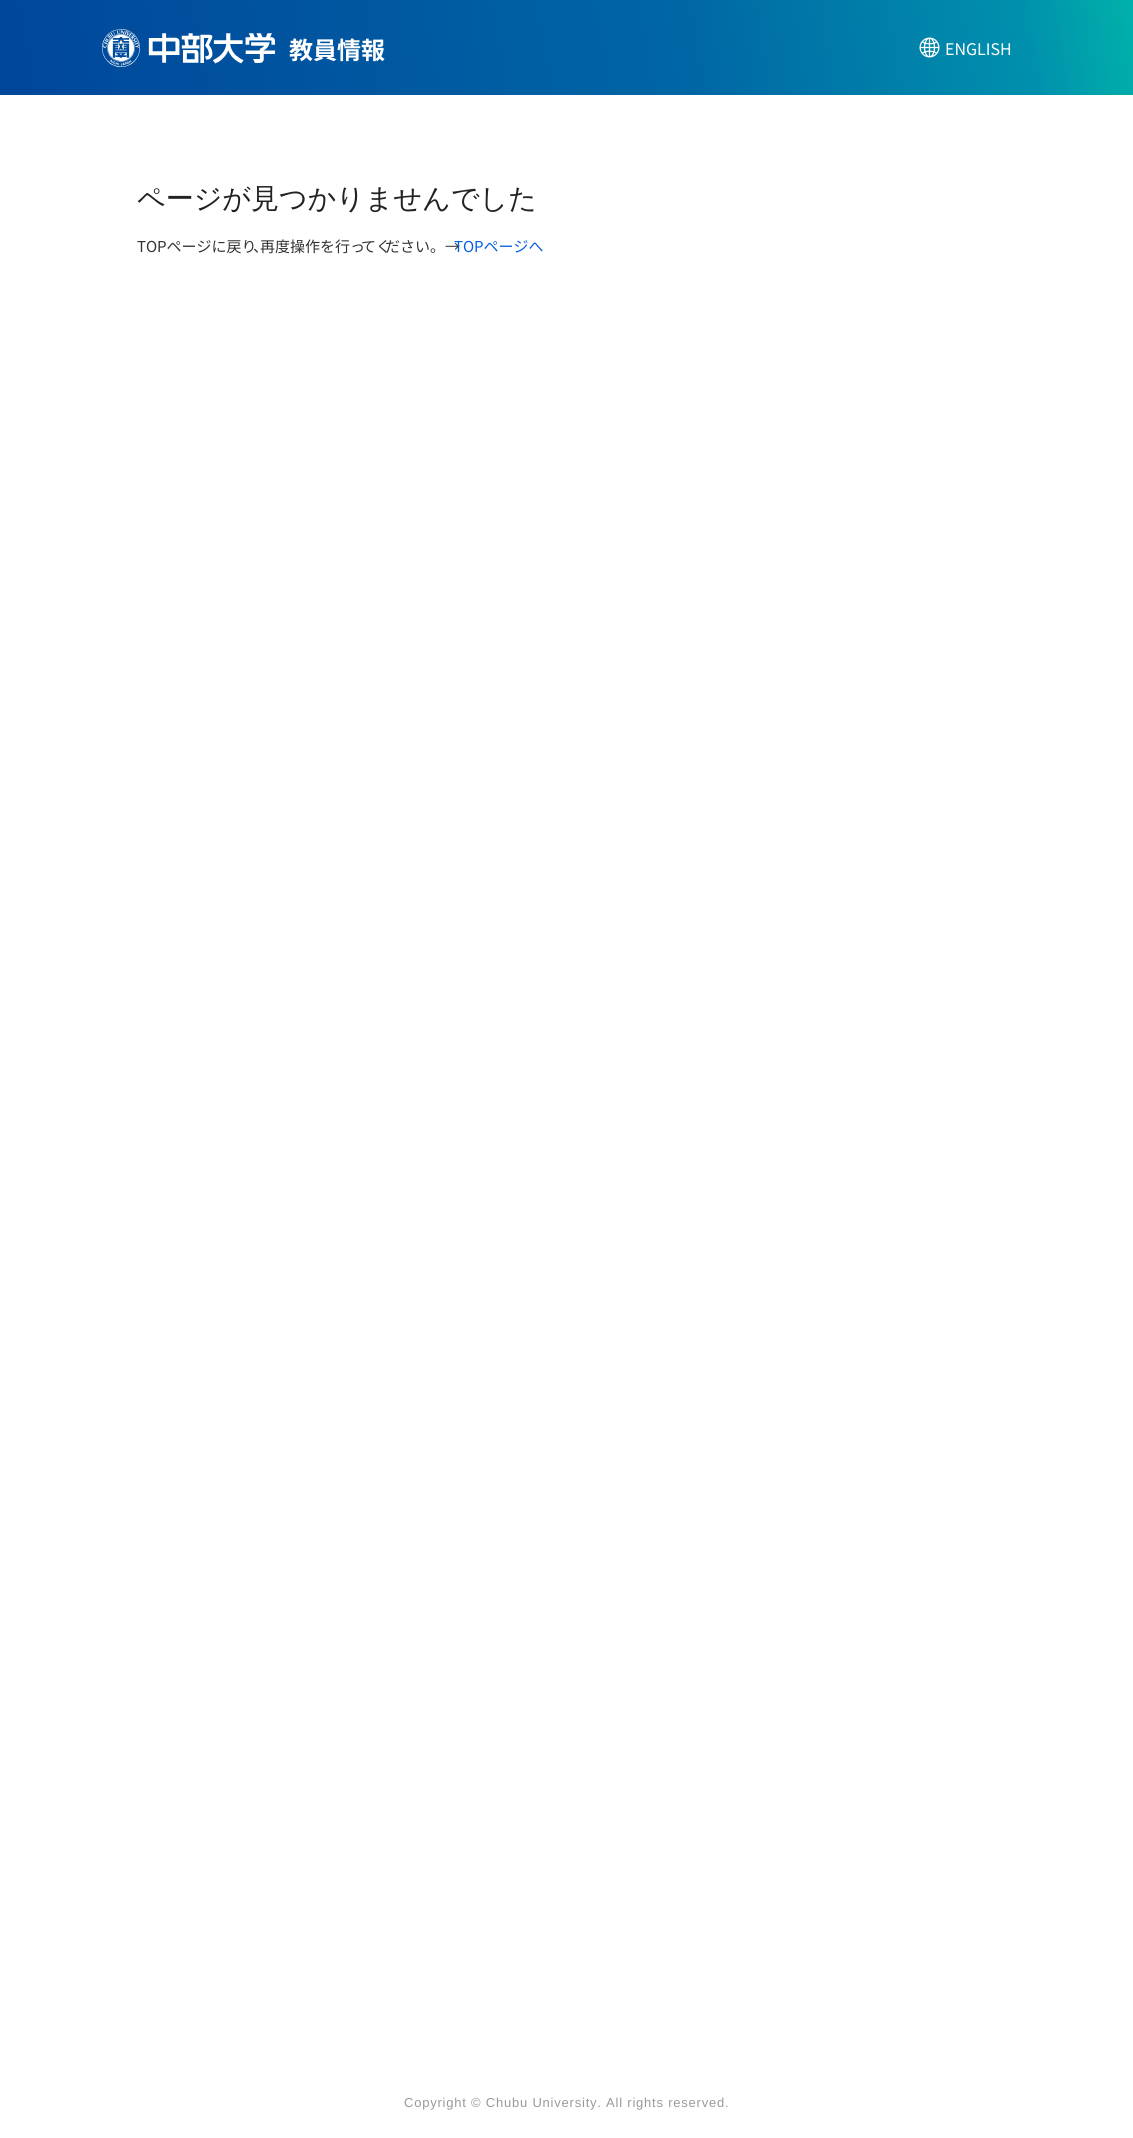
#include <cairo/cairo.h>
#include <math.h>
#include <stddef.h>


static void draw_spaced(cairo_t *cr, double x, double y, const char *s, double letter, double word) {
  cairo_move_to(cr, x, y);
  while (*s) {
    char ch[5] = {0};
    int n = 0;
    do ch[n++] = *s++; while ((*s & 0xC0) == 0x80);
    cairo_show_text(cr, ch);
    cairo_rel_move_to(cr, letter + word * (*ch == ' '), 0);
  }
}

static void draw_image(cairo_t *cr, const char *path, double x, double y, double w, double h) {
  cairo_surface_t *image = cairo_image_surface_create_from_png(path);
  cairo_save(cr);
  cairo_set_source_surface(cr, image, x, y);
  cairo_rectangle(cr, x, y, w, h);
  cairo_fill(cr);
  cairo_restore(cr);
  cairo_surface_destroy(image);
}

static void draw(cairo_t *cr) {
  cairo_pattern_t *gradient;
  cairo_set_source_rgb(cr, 1, 1, 1);
  cairo_paint(cr);
  gradient = cairo_pattern_create_linear(9, 146, 1124, -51);
  cairo_pattern_add_color_stop_rgba(gradient, 0, 0, 70 / 255.0, 155 / 255.0, 1);
  cairo_pattern_add_color_stop_rgba(gradient, 0.6, 0, 102 / 255.0, 165 / 255.0, 1);
  cairo_pattern_add_color_stop_rgba(gradient, 0.9, 0, 144 / 255.0, 173 / 255.0, 1);
  cairo_pattern_add_color_stop_rgba(gradient, 1, 0, 177 / 255.0, 170 / 255.0, 1);
  cairo_set_source(cr, gradient);
  cairo_pattern_destroy(gradient);
  cairo_rectangle(cr, 0, 0, 1133, 95);
  cairo_fill(cr);
  draw_image(cr, "images/1.png", 102, 29, 173, 38);
  draw_image(cr, "images/2.png", 919, 37, 21, 21);
  cairo_select_font_face(cr, "Noto Sans JP", CAIRO_FONT_SLANT_NORMAL, CAIRO_FONT_WEIGHT_BOLD);
  cairo_set_font_size(cr, 24);
  cairo_set_source_rgb(cr, 1, 1, 1);
  cairo_move_to(cr, 289, 59);
  cairo_show_text(cr, "教員情報");
  cairo_select_font_face(cr, "Noto Sans JP", CAIRO_FONT_SLANT_NORMAL, CAIRO_FONT_WEIGHT_NORMAL);
  cairo_set_font_size(cr, 16);
  cairo_move_to(cr, 945, 55);
  cairo_show_text(cr, "ENGLISH");
  cairo_select_font_face(cr, "WenQuanYi Zen Hei Medium", CAIRO_FONT_SLANT_NORMAL, CAIRO_FONT_WEIGHT_NORMAL);
  cairo_set_font_size(cr, 28);
  cairo_set_source_rgb(cr, 34 / 255.0, 34 / 255.0, 34 / 255.0);
  cairo_move_to(cr, 137, 208);
  cairo_show_text(cr, "ページが見つかりませんでした");
  cairo_select_font_face(cr, "Noto Sans JP", CAIRO_FONT_SLANT_NORMAL, CAIRO_FONT_WEIGHT_NORMAL);
  cairo_set_font_size(cr, 15);
  cairo_set_source_rgb(cr, 51 / 255.0, 51 / 255.0, 51 / 255.0);
  cairo_move_to(cr, 137, 252);
  cairo_show_text(cr, "TOPページに戻り");
  cairo_move_to(cr, 253, 252);
  cairo_show_text(cr, "、");
  cairo_move_to(cr, 260, 252);
  cairo_show_text(cr, "再度操作を行っ");
  cairo_move_to(cr, 361, 252);
  cairo_show_text(cr, "てく");
  cairo_move_to(cr, 385, 252);
  cairo_show_text(cr, "ださい。→");
  cairo_set_source_rgb(cr, 6 / 255.0, 94 / 255.0, 226 / 255.0);
  cairo_move_to(cr, 454, 252);
  cairo_show_text(cr, "TOPページへ");
  cairo_select_font_face(cr, "Liberation Sans", CAIRO_FONT_SLANT_NORMAL, CAIRO_FONT_WEIGHT_NORMAL);
  cairo_set_font_size(cr, 13);
  cairo_set_source_rgb(cr, 153 / 255.0, 153 / 255.0, 153 / 255.0);
  draw_spaced(cr, 404, 2107, "Copyright © Chubu University. All rights reserved.", 0.78, 0);
}

int main(void) {
  cairo_surface_t *surface = cairo_image_surface_create(CAIRO_FORMAT_RGB24, 1133, 2138);
  cairo_t *cr = cairo_create(surface);
  cairo_font_options_t *options = cairo_font_options_create();
  cairo_font_options_set_hint_metrics(options, CAIRO_HINT_METRICS_OFF);
  cairo_font_options_set_hint_style(options, CAIRO_HINT_STYLE_NONE);
  cairo_set_font_options(cr, options);
  cairo_set_miter_limit(cr, 4);
  draw(cr);
  cairo_surface_write_to_png(surface, "out.png");
  cairo_font_options_destroy(options);
  cairo_destroy(cr);
  cairo_surface_destroy(surface);
  return 0;
}
